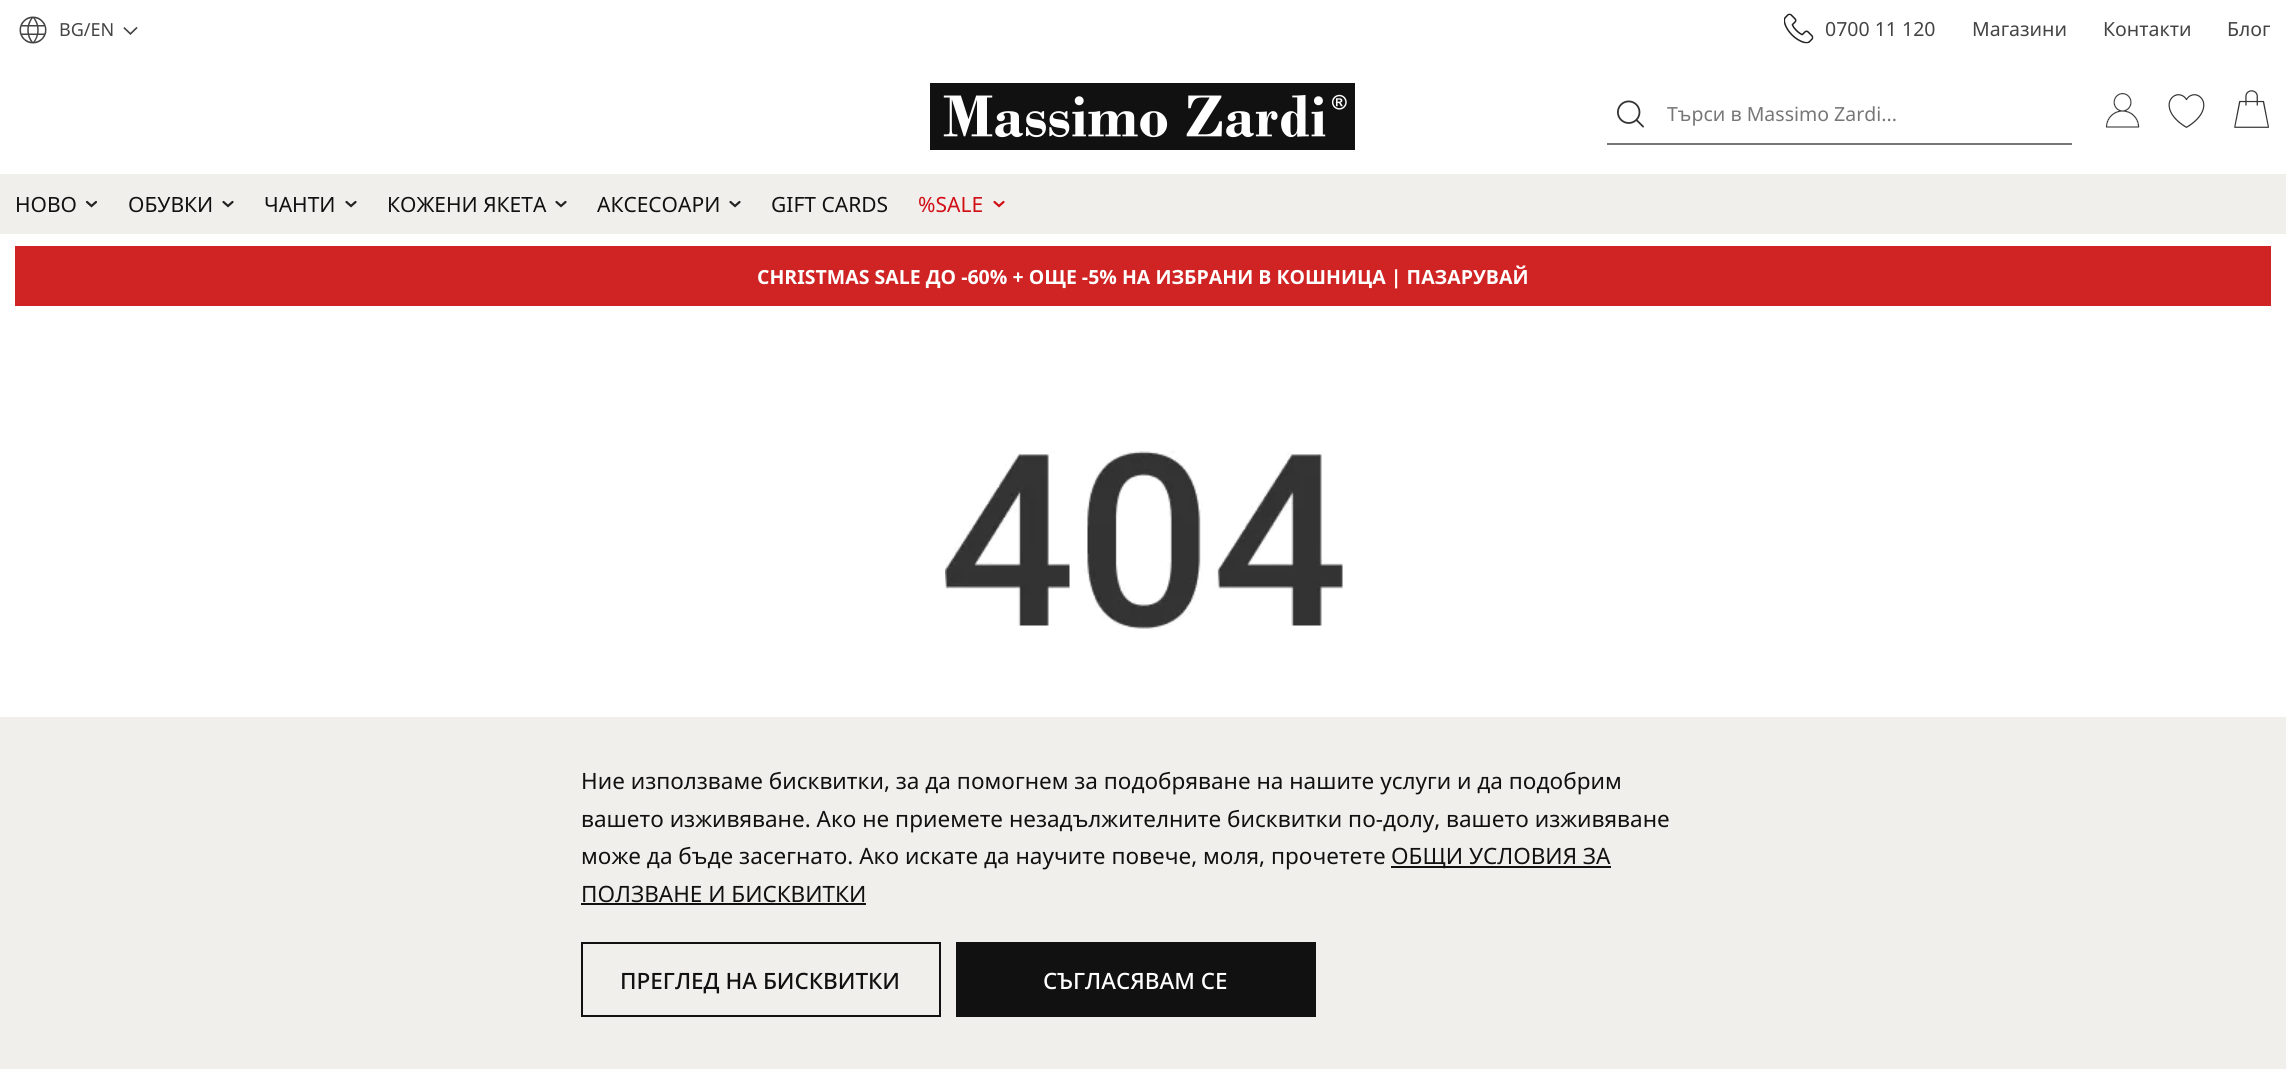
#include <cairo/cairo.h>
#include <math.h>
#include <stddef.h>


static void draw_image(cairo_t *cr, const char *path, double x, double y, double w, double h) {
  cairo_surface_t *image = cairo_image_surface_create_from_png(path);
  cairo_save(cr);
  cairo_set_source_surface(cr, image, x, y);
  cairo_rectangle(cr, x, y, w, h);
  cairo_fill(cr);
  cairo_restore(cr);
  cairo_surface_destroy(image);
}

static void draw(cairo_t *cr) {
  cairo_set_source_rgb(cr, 1, 1, 1);
  cairo_paint(cr);
  draw_image(cr, "images/1.png", 19, 16, 28, 28);
  draw_image(cr, "images/2.png", 123, 26, 15, 9);
  draw_image(cr, "images/3.png", 1784, 13, 30, 31);
  draw_image(cr, "images/4.png", 930, 83, 425, 67);
  draw_image(cr, "images/5.png", 1617, 100, 27, 28);
  cairo_set_source_rgb(cr, 119 / 255.0, 119 / 255.0, 119 / 255.0);
  cairo_rectangle(cr, 1607, 143, 465, 2);
  cairo_fill(cr);
  draw_image(cr, "images/6.png", 2105, 92, 35, 36);
  draw_image(cr, "images/7.png", 2168, 94, 37, 34);
  draw_image(cr, "images/8.png", 2234, 90, 35, 38);
  cairo_set_source_rgb(cr, 240 / 255.0, 239 / 255.0, 235 / 255.0);
  cairo_rectangle(cr, 0, 174, 2286, 60);
  cairo_fill(cr);
  cairo_new_path(cr);
  cairo_move_to(cr, 87, 202);
  cairo_line_to(cr, 91.5, 206);
  cairo_line_to(cr, 96, 202);
  cairo_set_source_rgb(cr, 34 / 255.0, 34 / 255.0, 34 / 255.0);
  cairo_set_line_width(cr, 2.2);
  cairo_set_line_cap(cr, CAIRO_LINE_CAP_ROUND);
  cairo_stroke(cr);
  cairo_new_path(cr);
  cairo_move_to(cr, 223.5, 202);
  cairo_line_to(cr, 228, 206);
  cairo_line_to(cr, 232.5, 202);
  cairo_stroke(cr);
  cairo_new_path(cr);
  cairo_move_to(cr, 346.5, 202);
  cairo_line_to(cr, 351, 206);
  cairo_line_to(cr, 355.5, 202);
  cairo_stroke(cr);
  cairo_new_path(cr);
  cairo_move_to(cr, 556.5, 202);
  cairo_line_to(cr, 561, 206);
  cairo_line_to(cr, 565.5, 202);
  cairo_stroke(cr);
  cairo_new_path(cr);
  cairo_move_to(cr, 730.5, 202);
  cairo_line_to(cr, 735, 206);
  cairo_line_to(cr, 739.5, 202);
  cairo_stroke(cr);
  cairo_new_path(cr);
  cairo_move_to(cr, 994.5, 202);
  cairo_line_to(cr, 999, 206);
  cairo_line_to(cr, 1003.5, 202);
  cairo_set_source_rgb(cr, 210 / 255.0, 14 / 255.0, 22 / 255.0);
  cairo_stroke(cr);
  cairo_set_source_rgb(cr, 208 / 255.0, 35 / 255.0, 35 / 255.0);
  cairo_rectangle(cr, 15, 246, 2256, 60);
  cairo_fill(cr);
  draw_image(cr, "images/9.png", 945, 451, 398, 178);
  cairo_set_source_rgb(cr, 240 / 255.0, 239 / 255.0, 235 / 255.0);
  cairo_rectangle(cr, 0, 717, 2286, 352);
  cairo_fill(cr);
  cairo_set_source_rgb(cr, 17 / 255.0, 17 / 255.0, 17 / 255.0);
  cairo_rectangle(cr, 1391, 866, 220, 2);
  cairo_fill(cr);
  cairo_rectangle(cr, 581, 903, 285, 2);
  cairo_fill(cr);
  cairo_rectangle(cr, 582, 943, 358, 73);
  cairo_set_line_width(cr, 2);
  cairo_set_line_cap(cr, CAIRO_LINE_CAP_BUTT);
  cairo_stroke(cr);
  cairo_rectangle(cr, 956, 942, 360, 75);
  cairo_fill(cr);
  cairo_select_font_face(cr, "Noto Sans", CAIRO_FONT_SLANT_NORMAL, CAIRO_FONT_WEIGHT_NORMAL);
  cairo_set_font_size(cr, 18);
  cairo_set_source_rgb(cr, 68 / 255.0, 68 / 255.0, 68 / 255.0);
  cairo_move_to(cr, 59, 36);
  cairo_show_text(cr, "BG/EN");
  cairo_set_font_size(cr, 19.5);
  cairo_move_to(cr, 1825, 36);
  cairo_show_text(cr, "0700 11 120");
  cairo_move_to(cr, 1972, 36);
  cairo_show_text(cr, "Магазини");
  cairo_move_to(cr, 2103, 36);
  cairo_show_text(cr, "Контакти");
  cairo_move_to(cr, 2227, 36);
  cairo_show_text(cr, "Блог");
  cairo_set_source_rgb(cr, 119 / 255.0, 119 / 255.0, 119 / 255.0);
  cairo_move_to(cr, 1667, 121);
  cairo_show_text(cr, "Търси в Massimo Zardi...");
  cairo_set_font_size(cr, 21);
  cairo_set_source_rgb(cr, 17 / 255.0, 17 / 255.0, 17 / 255.0);
  cairo_move_to(cr, 15, 212);
  cairo_show_text(cr, "НОВО");
  cairo_move_to(cr, 128, 212);
  cairo_show_text(cr, "ОБУВКИ");
  cairo_move_to(cr, 264, 212);
  cairo_show_text(cr, "ЧАНТИ");
  cairo_move_to(cr, 387, 212);
  cairo_show_text(cr, "КОЖЕНИ ЯКЕТА");
  cairo_move_to(cr, 597, 212);
  cairo_show_text(cr, "AКСЕСОАРИ");
  cairo_move_to(cr, 771, 212);
  cairo_show_text(cr, "GIFT CARDS");
  cairo_set_source_rgb(cr, 210 / 255.0, 14 / 255.0, 22 / 255.0);
  cairo_move_to(cr, 918, 212);
  cairo_show_text(cr, "%SALE");
  cairo_select_font_face(cr, "Noto Sans", CAIRO_FONT_SLANT_NORMAL, CAIRO_FONT_WEIGHT_BOLD);
  cairo_set_font_size(cr, 19.5);
  cairo_set_source_rgb(cr, 1, 1, 1);
  cairo_move_to(cr, 757, 284);
  cairo_show_text(cr, "CHRISTMAS SALE ДО -60% + ОЩЕ -5% НА ИЗБРАНИ В КОШНИЦА | ПАЗАРУВАЙ");
  cairo_select_font_face(cr, "Noto Sans", CAIRO_FONT_SLANT_NORMAL, CAIRO_FONT_WEIGHT_NORMAL);
  cairo_set_font_size(cr, 22.5);
  cairo_set_source_rgb(cr, 17 / 255.0, 17 / 255.0, 17 / 255.0);
  cairo_move_to(cr, 581, 789);
  cairo_show_text(cr, "Ние използваме бисквитки, за да помогнем за подобряване на нашите услуги и да подобрим");
  cairo_move_to(cr, 581, 827);
  cairo_show_text(cr, "вашето изживяване. Ако не приемете незадължителните бисквитки по-долу, вашето изживяване");
  cairo_move_to(cr, 581, 864);
  cairo_show_text(cr, "може да бъде засегнато. Ако искате да научите повече, моля, прочетете");
  cairo_move_to(cr, 1391, 864);
  cairo_show_text(cr, "ОБЩИ УСЛОВИЯ ЗА");
  cairo_move_to(cr, 581, 902);
  cairo_show_text(cr, "ПОЛЗВАНЕ И БИСКВИТКИ");
  cairo_select_font_face(cr, "Noto Sans Medium", CAIRO_FONT_SLANT_NORMAL, CAIRO_FONT_WEIGHT_NORMAL);
  cairo_move_to(cr, 620, 989);
  cairo_show_text(cr, "ПРЕГЛЕД НА БИСКВИТКИ");
  cairo_set_source_rgb(cr, 1, 1, 1);
  cairo_move_to(cr, 1043, 989);
  cairo_show_text(cr, "СЪГЛАСЯВАМ СЕ");
}

int main(void) {
  cairo_surface_t *surface = cairo_image_surface_create(CAIRO_FORMAT_RGB24, 2286, 1069);
  cairo_t *cr = cairo_create(surface);
  cairo_font_options_t *options = cairo_font_options_create();
  cairo_font_options_set_hint_metrics(options, CAIRO_HINT_METRICS_OFF);
  cairo_font_options_set_hint_style(options, CAIRO_HINT_STYLE_NONE);
  cairo_set_font_options(cr, options);
  cairo_set_miter_limit(cr, 4);
  draw(cr);
  cairo_surface_write_to_png(surface, "out.png");
  cairo_font_options_destroy(options);
  cairo_destroy(cr);
  cairo_surface_destroy(surface);
  return 0;
}
